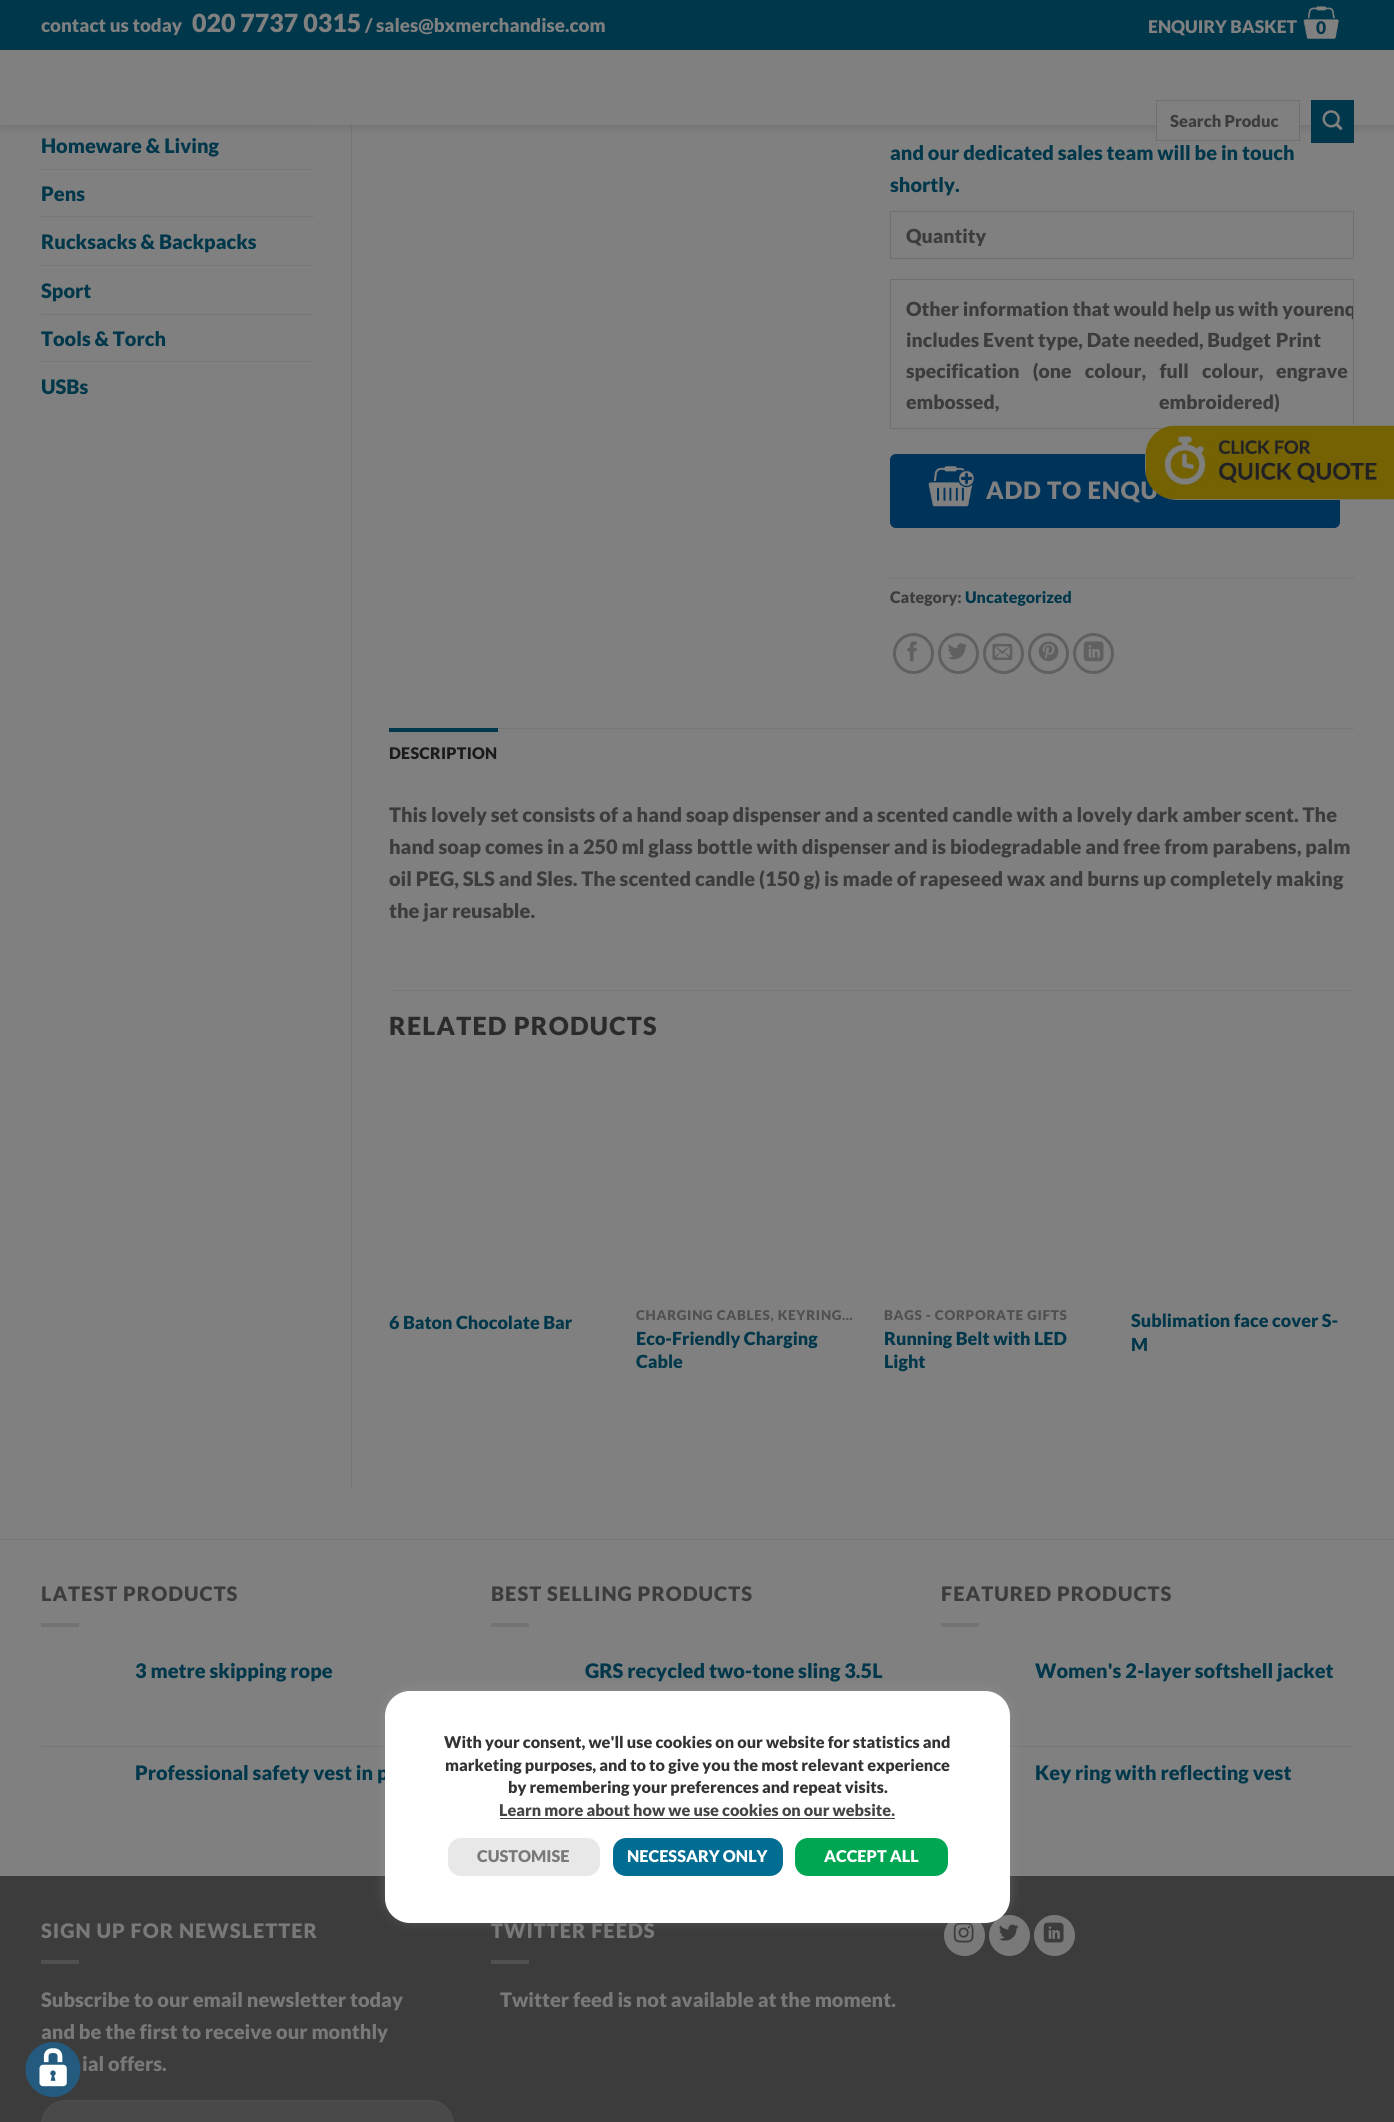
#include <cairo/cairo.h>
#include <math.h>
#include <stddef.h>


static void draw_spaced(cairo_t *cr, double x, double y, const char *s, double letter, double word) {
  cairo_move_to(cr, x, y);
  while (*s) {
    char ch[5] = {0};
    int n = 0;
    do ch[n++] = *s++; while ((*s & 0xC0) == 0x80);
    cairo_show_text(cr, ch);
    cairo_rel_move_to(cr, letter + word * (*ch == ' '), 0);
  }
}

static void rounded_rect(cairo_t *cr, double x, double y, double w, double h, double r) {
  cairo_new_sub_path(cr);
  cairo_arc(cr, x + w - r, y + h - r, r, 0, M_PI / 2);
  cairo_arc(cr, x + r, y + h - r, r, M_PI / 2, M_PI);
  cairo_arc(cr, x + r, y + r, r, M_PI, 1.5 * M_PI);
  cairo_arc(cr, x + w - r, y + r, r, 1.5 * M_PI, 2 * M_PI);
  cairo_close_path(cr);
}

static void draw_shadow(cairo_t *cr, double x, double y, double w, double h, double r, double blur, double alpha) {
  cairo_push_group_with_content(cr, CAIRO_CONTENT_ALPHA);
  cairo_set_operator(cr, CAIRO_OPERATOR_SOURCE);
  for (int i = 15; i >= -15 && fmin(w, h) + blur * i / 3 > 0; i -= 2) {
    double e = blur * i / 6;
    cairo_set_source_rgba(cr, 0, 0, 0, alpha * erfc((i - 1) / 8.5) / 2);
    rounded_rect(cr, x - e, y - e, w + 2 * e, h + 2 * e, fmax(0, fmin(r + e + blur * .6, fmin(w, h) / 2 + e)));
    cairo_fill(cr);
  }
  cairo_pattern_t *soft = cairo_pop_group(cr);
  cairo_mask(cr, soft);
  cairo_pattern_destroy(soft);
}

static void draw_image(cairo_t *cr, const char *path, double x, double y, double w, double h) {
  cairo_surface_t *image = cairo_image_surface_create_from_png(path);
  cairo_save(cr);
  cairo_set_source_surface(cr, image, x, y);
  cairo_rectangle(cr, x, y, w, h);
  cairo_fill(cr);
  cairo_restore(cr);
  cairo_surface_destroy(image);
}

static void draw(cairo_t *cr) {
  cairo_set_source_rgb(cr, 128 / 255.0, 128 / 255.0, 128 / 255.0);
  cairo_paint(cr);
  cairo_set_source_rgb(cr, 118 / 255.0, 118 / 255.0, 118 / 255.0);
  cairo_rectangle(cr, 41, 73, 273, 1);
  cairo_fill(cr);
  cairo_rectangle(cr, 41, 120, 273, 1);
  cairo_fill(cr);
  cairo_rectangle(cr, 351, 50, 1, 1439);
  cairo_fill(cr);
  cairo_save(cr);
  cairo_rectangle(cr, 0, 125, 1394, 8);
  cairo_clip(cr);
  cairo_set_source_rgb(cr, 0, 0, 0);
  draw_shadow(cr, 1, 1, 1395, 125, 0, 6, 0.15);
  cairo_restore(cr);
  cairo_set_source_rgb(cr, 1 / 255.0, 55 / 255.0, 74 / 255.0);
  cairo_rectangle(cr, 0, 0, 1394, 50);
  cairo_fill(cr);
  draw_image(cr, "images/1.png", 1303, 6, 36, 33);
  cairo_set_source_rgba(cr, 128 / 255.0, 128 / 255.0, 128 / 255.0, 0.9);
  cairo_rectangle(cr, 41, 50, 311, 75);
  cairo_fill(cr);
  draw_image(cr, "images/2.png", 50, 90, 117, 15);
  cairo_set_source_rgb(cr, 128 / 255.0, 128 / 255.0, 128 / 255.0);
  cairo_rectangle(cr, 1157, 125, 142, 8);
  cairo_fill(cr);
  cairo_rectangle(cr, 1156.5, 100.5, 143, 40);
  cairo_set_source_rgb(cr, 111 / 255.0, 111 / 255.0, 111 / 255.0);
  cairo_set_line_width(cr, 1);
  cairo_stroke(cr);
  cairo_set_source_rgb(cr, 1 / 255.0, 55 / 255.0, 74 / 255.0);
  cairo_rectangle(cr, 1311.5, 100.5, 42, 42);
  cairo_fill_preserve(cr);
  cairo_set_source_rgb(cr, 1 / 255.0, 52 / 255.0, 70 / 255.0);
  cairo_stroke(cr);
  draw_image(cr, "images/3.png", 1322, 110, 21, 20);
  cairo_set_source_rgb(cr, 118 / 255.0, 118 / 255.0, 118 / 255.0);
  cairo_rectangle(cr, 41, 169, 273, 1);
  cairo_fill(cr);
  cairo_rectangle(cr, 41, 216, 273, 1);
  cairo_fill(cr);
  cairo_rectangle(cr, 41, 265, 273, 1);
  cairo_fill(cr);
  cairo_rectangle(cr, 41, 314, 273, 1);
  cairo_fill(cr);
  cairo_rectangle(cr, 41, 361, 273, 1);
  cairo_fill(cr);
  cairo_rectangle(cr, 890.5, 211.5, 463, 47);
  cairo_set_source_rgb(cr, 111 / 255.0, 111 / 255.0, 111 / 255.0);
  cairo_stroke(cr);
  cairo_rectangle(cr, 890.5, 279.5, 463, 149);
  cairo_stroke(cr);
  cairo_set_source_rgb(cr, 0, 51 / 255.0, 90 / 255.0);
  rounded_rect(cr, 890.5, 454.5, 449, 73, 5.5);
  cairo_fill_preserve(cr);
  cairo_stroke(cr);
  draw_image(cr, "images/4.png", 928, 466, 46, 41);
  cairo_new_path(cr);
  cairo_move_to(cr, 890, 578);
  cairo_line_to(cr, 1354, 578);
  cairo_set_source_rgb(cr, 111 / 255.0, 111 / 255.0, 111 / 255.0);
  cairo_set_line_width(cr, 1.2);
  cairo_set_dash(cr, (double[]){1.25, 1.25}, 2, 0);
  cairo_stroke(cr);
  cairo_arc(cr, 913.5, 653.5, 19, 0, 2 * M_PI);
  cairo_set_source_rgb(cr, 96 / 255.0, 96 / 255.0, 96 / 255.0);
  cairo_set_line_width(cr, 3);
  cairo_set_dash(cr, NULL, 0, 0);
  cairo_stroke(cr);
  draw_image(cr, "images/5.png", 907, 641, 10, 21);
  cairo_arc(cr, 958.5, 653.5, 19, 0, 2 * M_PI);
  cairo_stroke(cr);
  draw_image(cr, "images/6.png", 948, 643, 19, 17);
  cairo_arc(cr, 1003.5, 653.5, 19, 0, 2 * M_PI);
  cairo_stroke(cr);
  draw_image(cr, "images/7.png", 992, 643, 21, 17);
  cairo_arc(cr, 1048.5, 653.5, 19, 0, 2 * M_PI);
  cairo_stroke(cr);
  draw_image(cr, "images/8.png", 1038, 641, 21, 21);
  cairo_arc(cr, 1093.5, 653.5, 19, 0, 2 * M_PI);
  cairo_stroke(cr);
  draw_image(cr, "images/9.png", 1083, 641, 21, 21);
  cairo_set_source_rgb(cr, 118 / 255.0, 118 / 255.0, 118 / 255.0);
  cairo_rectangle(cr, 498, 728, 856, 1);
  cairo_fill(cr);
  cairo_set_source_rgb(cr, 1 / 255.0, 55 / 255.0, 74 / 255.0);
  cairo_rectangle(cr, 389, 728, 109, 4);
  cairo_fill(cr);
  cairo_set_source_rgb(cr, 118 / 255.0, 118 / 255.0, 118 / 255.0);
  cairo_rectangle(cr, 390, 990, 964, 1);
  cairo_fill(cr);
  cairo_set_source_rgb(cr, 121 / 255.0, 121 / 255.0, 121 / 255.0);
  cairo_rectangle(cr, 0, 1539, 1394, 1);
  cairo_fill(cr);
  cairo_set_source_rgb(cr, 115 / 255.0, 115 / 255.0, 115 / 255.0);
  cairo_rectangle(cr, 41, 1623, 38, 4);
  cairo_fill(cr);
  cairo_set_source_rgb(cr, 118 / 255.0, 118 / 255.0, 118 / 255.0);
  cairo_rectangle(cr, 41, 1746, 344, 1);
  cairo_fill(cr);
  cairo_set_source_rgb(cr, 115 / 255.0, 115 / 255.0, 115 / 255.0);
  cairo_rectangle(cr, 491, 1623, 38, 4);
  cairo_fill(cr);
  cairo_rectangle(cr, 941, 1623, 38, 4);
  cairo_fill(cr);
  cairo_set_source_rgb(cr, 118 / 255.0, 118 / 255.0, 118 / 255.0);
  cairo_rectangle(cr, 1010, 1746, 344, 1);
  cairo_fill(cr);
  cairo_set_source_rgb(cr, 60 / 255.0, 60 / 255.0, 60 / 255.0);
  cairo_rectangle(cr, 0, 1877, 1394, 245);
  cairo_fill(cr);
  cairo_set_source_rgb(cr, 57 / 255.0, 57 / 255.0, 57 / 255.0);
  cairo_rectangle(cr, 0, 1876, 1394, 1);
  cairo_fill(cr);
  cairo_set_source_rgb(cr, 80 / 255.0, 80 / 255.0, 80 / 255.0);
  cairo_rectangle(cr, 41, 1960, 38, 4);
  cairo_fill(cr);
  cairo_set_source_rgb(cr, 73 / 255.0, 73 / 255.0, 73 / 255.0);
  rounded_rect(cr, 41, 2100, 413, 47, 24.5);
  cairo_fill(cr);
  rounded_rect(cr, 41.5, 2100.5, 412, 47, 24);
  cairo_set_source_rgba(cr, 128 / 255.0, 128 / 255.0, 128 / 255.0, 0.09);
  cairo_set_line_width(cr, 1);
  cairo_stroke(cr);
  cairo_set_source_rgb(cr, 80 / 255.0, 80 / 255.0, 80 / 255.0);
  cairo_rectangle(cr, 491, 1960, 38, 4);
  cairo_fill(cr);
  cairo_set_source_rgb(cr, 121 / 255.0, 121 / 255.0, 121 / 255.0);
  cairo_arc(cr, 964.5, 1935.5, 20.5, 0, 2 * M_PI);
  cairo_fill(cr);
  draw_image(cr, "images/11.png", 953, 1923, 21, 20);
  cairo_arc(cr, 1009.5, 1935.5, 20.5, 0, 2 * M_PI);
  cairo_fill(cr);
  draw_image(cr, "images/12.png", 999, 1924, 20, 17);
  cairo_arc(cr, 1054.5, 1935.5, 20.5, 0, 2 * M_PI);
  cairo_fill(cr);
  draw_image(cr, "images/13.png", 1043, 1922, 21, 21);
  cairo_set_source_rgb(cr, 172 / 255.0, 171 / 255.0, 171 / 255.0);
  draw_shadow(cr, 385, 1690, 625, 231, 25, 6, 0.3);
  cairo_select_font_face(cr, "Lato Black", CAIRO_FONT_SLANT_NORMAL, CAIRO_FONT_WEIGHT_NORMAL);
  cairo_set_font_size(cr, 18.75);
  cairo_set_source_rgb(cr, 128 / 255.0, 128 / 255.0, 128 / 255.0);
  cairo_move_to(cr, 41, 32);
  cairo_show_text(cr, "contact us today");
  cairo_set_font_size(cr, 25);
  cairo_move_to(cr, 192, 32);
  cairo_show_text(cr, "020 7737 0315");
  cairo_set_font_size(cr, 18.75);
  cairo_move_to(cr, 365, 32);
  cairo_show_text(cr, "/ sales@bxmerchandise.com");
  cairo_set_font_size(cr, 17.5);
  cairo_move_to(cr, 1148, 33);
  cairo_show_text(cr, "ENQUIRY BASKET");
  cairo_set_source_rgb(cr, 1 / 255.0, 55 / 255.0, 74 / 255.0);
  cairo_move_to(cr, 1316, 34);
  cairo_show_text(cr, "0");
  cairo_set_font_size(cr, 16.5);
  cairo_set_source_rgb(cr, 60 / 255.0, 60 / 255.0, 60 / 255.0);
  cairo_move_to(cr, 1170, 127);
  cairo_show_text(cr, "Search Produc");
  cairo_set_font_size(cr, 20);
  cairo_set_source_rgb(cr, 1 / 255.0, 55 / 255.0, 74 / 255.0);
  cairo_move_to(cr, 41, 153);
  cairo_show_text(cr, "Homeware & Living");
  cairo_move_to(cr, 41, 201);
  cairo_show_text(cr, "Pens");
  cairo_move_to(cr, 41, 249);
  cairo_show_text(cr, "Rucksacks & Backpacks");
  cairo_move_to(cr, 41, 298);
  cairo_show_text(cr, "Sport");
  cairo_move_to(cr, 41, 346);
  cairo_show_text(cr, "Tools & Torch");
  cairo_move_to(cr, 41, 394);
  cairo_show_text(cr, "USBs");
  cairo_move_to(cr, 890, 160);
  cairo_show_text(cr, "and our dedicated sales team will be in touch");
  cairo_move_to(cr, 890, 192);
  cairo_show_text(cr, "shortly.");
  cairo_save(cr);
  cairo_rectangle(cr, 906, 224, 432, 22);
  cairo_clip(cr);
  cairo_set_font_size(cr, 19.4);
  cairo_set_source_rgb(cr, 60 / 255.0, 60 / 255.0, 60 / 255.0);
  cairo_move_to(cr, 906, 243);
  cairo_show_text(cr, "Quantity");
  cairo_restore(cr);
  cairo_set_font_size(cr, 19.4);
  cairo_set_source_rgb(cr, 60 / 255.0, 60 / 255.0, 60 / 255.0);
  cairo_move_to(cr, 906, 316);
  cairo_show_text(cr, "Other information that would help us with your");
  cairo_save(cr);
  cairo_rectangle(cr, 891, 280, 462, 148);
  cairo_clip(cr);
  cairo_move_to(cr, 1323, 316);
  cairo_show_text(cr, "enq");
  cairo_restore(cr);
  cairo_move_to(cr, 906, 347);
  cairo_show_text(cr, "includes Event type, Date needed, Budget");
  cairo_move_to(cr, 1276, 347);
  cairo_show_text(cr, "Print");
  draw_spaced(cr, 906, 378, "specification (one colour, full colour,", 0, 9.5);
  cairo_move_to(cr, 1276, 378);
  cairo_show_text(cr, "engrave");
  draw_spaced(cr, 906, 409, "embossed, embroidered)", 0, 156);
  cairo_set_font_size(cr, 24);
  cairo_set_source_rgb(cr, 128 / 255.0, 128 / 255.0, 128 / 255.0);
  draw_spaced(cr, 986, 499, "ADD TO ENQU", 0.75, 0);
  cairo_set_font_size(cr, 16);
  cairo_set_source_rgb(cr, 60 / 255.0, 60 / 255.0, 60 / 255.0);
  cairo_move_to(cr, 890, 603);
  cairo_show_text(cr, "Category:");
  cairo_set_source_rgb(cr, 1 / 255.0, 55 / 255.0, 74 / 255.0);
  cairo_move_to(cr, 965, 603);
  cairo_show_text(cr, "Uncategorized");
  cairo_set_source_rgb(cr, 27 / 255.0, 27 / 255.0, 27 / 255.0);
  draw_spaced(cr, 389, 759, "DESCRIPTION", 0.25, 0);
  cairo_set_font_size(cr, 20);
  cairo_set_source_rgb(cr, 60 / 255.0, 60 / 255.0, 60 / 255.0);
  cairo_move_to(cr, 389, 822);
  cairo_show_text(cr, "This lovely set consists of a hand soap dispenser and a scented candle with a lovely dark amber scent. The");
  cairo_move_to(cr, 389, 854);
  cairo_show_text(cr, "hand soap comes in a 250 ml glass bottle with dispenser and is biodegradable and free from parabens, palm");
  cairo_move_to(cr, 389, 886);
  cairo_show_text(cr, "oil PEG, SLS and Sles. The scented candle (150 g) is made of rapeseed wax and burns up completely making");
  cairo_move_to(cr, 389, 918);
  cairo_show_text(cr, "the jar reusable.");
  cairo_set_font_size(cr, 25);
  cairo_set_source_rgb(cr, 43 / 255.0, 43 / 255.0, 43 / 255.0);
  draw_spaced(cr, 389, 1035, "RELATED PRODUCTS", 1.25, 0);
  cairo_set_font_size(cr, 18);
  cairo_set_source_rgb(cr, 1 / 255.0, 55 / 255.0, 74 / 255.0);
  cairo_move_to(cr, 389, 1329);
  cairo_show_text(cr, "6 Baton Chocolate Bar");
  cairo_set_font_size(cr, 13.5);
  cairo_set_source_rgb(cr, 80 / 255.0, 80 / 255.0, 80 / 255.0);
  draw_spaced(cr, 636, 1320, "CHARGING CABLES, KEYRING…", 0.7, 0);
  cairo_set_font_size(cr, 18);
  cairo_set_source_rgb(cr, 1 / 255.0, 55 / 255.0, 74 / 255.0);
  cairo_move_to(cr, 636, 1345);
  cairo_show_text(cr, "Eco-Friendly Charging");
  cairo_move_to(cr, 636, 1368);
  cairo_show_text(cr, "Cable");
  cairo_set_font_size(cr, 13.5);
  cairo_set_source_rgb(cr, 80 / 255.0, 80 / 255.0, 80 / 255.0);
  draw_spaced(cr, 884, 1320, "BAGS - CORPORATE GIFTS", 0.7, 0);
  cairo_set_font_size(cr, 18);
  cairo_set_source_rgb(cr, 1 / 255.0, 55 / 255.0, 74 / 255.0);
  cairo_move_to(cr, 884, 1345);
  cairo_show_text(cr, "Running Belt with LED");
  cairo_move_to(cr, 884, 1368);
  cairo_show_text(cr, "Light");
  cairo_move_to(cr, 1131, 1327);
  cairo_show_text(cr, "Sublimation face cover S-");
  cairo_move_to(cr, 1131, 1351);
  cairo_show_text(cr, "M");
  draw_image(cr, "images/10.png", 1145, 425, 249, 75);
  cairo_set_font_size(cr, 20);
  cairo_set_source_rgb(cr, 60 / 255.0, 60 / 255.0, 60 / 255.0);
  draw_spaced(cr, 41, 1601, "LATEST PRODUCTS", 1, 0);
  cairo_set_source_rgb(cr, 1 / 255.0, 55 / 255.0, 74 / 255.0);
  cairo_move_to(cr, 135, 1678);
  cairo_show_text(cr, "3 metre skipping rope");
  cairo_move_to(cr, 135, 1780);
  cairo_show_text(cr, "Professional safety vest in p");
  cairo_set_source_rgb(cr, 60 / 255.0, 60 / 255.0, 60 / 255.0);
  draw_spaced(cr, 491, 1601, "BEST SELLING PRODUCTS", 1, 0);
  cairo_set_source_rgb(cr, 1 / 255.0, 55 / 255.0, 74 / 255.0);
  cairo_move_to(cr, 585, 1678);
  cairo_show_text(cr, "GRS recycled two-tone sling 3.5L");
  cairo_set_source_rgb(cr, 60 / 255.0, 60 / 255.0, 60 / 255.0);
  draw_spaced(cr, 941, 1601, "FEATURED PRODUCTS", 1, 0);
  cairo_set_source_rgb(cr, 1 / 255.0, 55 / 255.0, 74 / 255.0);
  cairo_move_to(cr, 1035, 1678);
  cairo_show_text(cr, "Women's 2-layer softshell jacket");
  cairo_move_to(cr, 1035, 1780);
  cairo_show_text(cr, "Key ring with reflecting vest");
  cairo_set_source_rgb(cr, 121 / 255.0, 121 / 255.0, 121 / 255.0);
  draw_spaced(cr, 41, 1938, "SIGN UP FOR NEWSLETTER", 1, 0);
  cairo_move_to(cr, 41, 2007);
  cairo_show_text(cr, "Subscribe to our email newsletter today");
  cairo_move_to(cr, 41, 2039);
  cairo_show_text(cr, "and be the first to receive our monthly");
  cairo_move_to(cr, 82, 2071);
  cairo_show_text(cr, "ial offers.");
  draw_spaced(cr, 491, 1938, "TWITTER FEEDS", 1, 0);
  cairo_move_to(cr, 500, 2007);
  cairo_show_text(cr, "Twitter feed is not available at the moment.");
  cairo_set_source_rgb(cr, 1, 1, 1);
  rounded_rect(cr, 385, 1691, 625, 232, 25);
  cairo_fill(cr);
  cairo_set_font_size(cr, 16.25);
  cairo_set_source_rgb(cr, 51 / 255.0, 51 / 255.0, 51 / 255.0);
  cairo_move_to(cr, 444, 1748);
  cairo_show_text(cr, "With your consent, we'll use cookies on our website for statistics and");
  cairo_move_to(cr, 445, 1771);
  cairo_show_text(cr, "marketing purposes, and to to give you the most relevant experience");
  cairo_move_to(cr, 508, 1793);
  cairo_show_text(cr, "by remembering your preferences and repeat visits.");
  cairo_set_source_rgb(cr, 68 / 255.0, 68 / 255.0, 68 / 255.0);
  cairo_move_to(cr, 499, 1816);
  cairo_show_text(cr, "Learn more about how we use cookies on our website.");
  cairo_rectangle(cr, 500, 1818, 395, 1);
  cairo_fill(cr);
  cairo_set_source_rgb(cr, 232 / 255.0, 232 / 255.0, 232 / 255.0);
  rounded_rect(cr, 448, 1838, 152, 38, 13);
  cairo_fill(cr);
  cairo_set_source_rgb(cr, 121 / 255.0, 121 / 255.0, 121 / 255.0);
  cairo_move_to(cr, 477, 1862);
  cairo_show_text(cr, "CUSTOMISE");
  cairo_set_source_rgb(cr, 1 / 255.0, 109 / 255.0, 147 / 255.0);
  rounded_rect(cr, 613, 1838, 170, 38, 13);
  cairo_fill(cr);
  cairo_set_source_rgb(cr, 1, 1, 1);
  cairo_move_to(cr, 627, 1862);
  cairo_show_text(cr, "NECESSARY ONLY");
  cairo_set_source_rgb(cr, 0, 166 / 255.0, 82 / 255.0);
  rounded_rect(cr, 795, 1838, 153, 38, 13);
  cairo_fill(cr);
  cairo_set_source_rgb(cr, 1, 1, 1);
  cairo_move_to(cr, 824, 1862);
  cairo_show_text(cr, "ACCEPT ALL");
  draw_image(cr, "images/14.png", 25, 2042, 56, 55);
}

int main(void) {
  cairo_surface_t *surface = cairo_image_surface_create(CAIRO_FORMAT_RGB24, 1394, 2122);
  cairo_t *cr = cairo_create(surface);
  cairo_font_options_t *options = cairo_font_options_create();
  cairo_font_options_set_hint_metrics(options, CAIRO_HINT_METRICS_OFF);
  cairo_font_options_set_hint_style(options, CAIRO_HINT_STYLE_NONE);
  cairo_set_font_options(cr, options);
  cairo_set_miter_limit(cr, 4);
  draw(cr);
  cairo_surface_write_to_png(surface, "out.png");
  cairo_font_options_destroy(options);
  cairo_destroy(cr);
  cairo_surface_destroy(surface);
  return 0;
}
